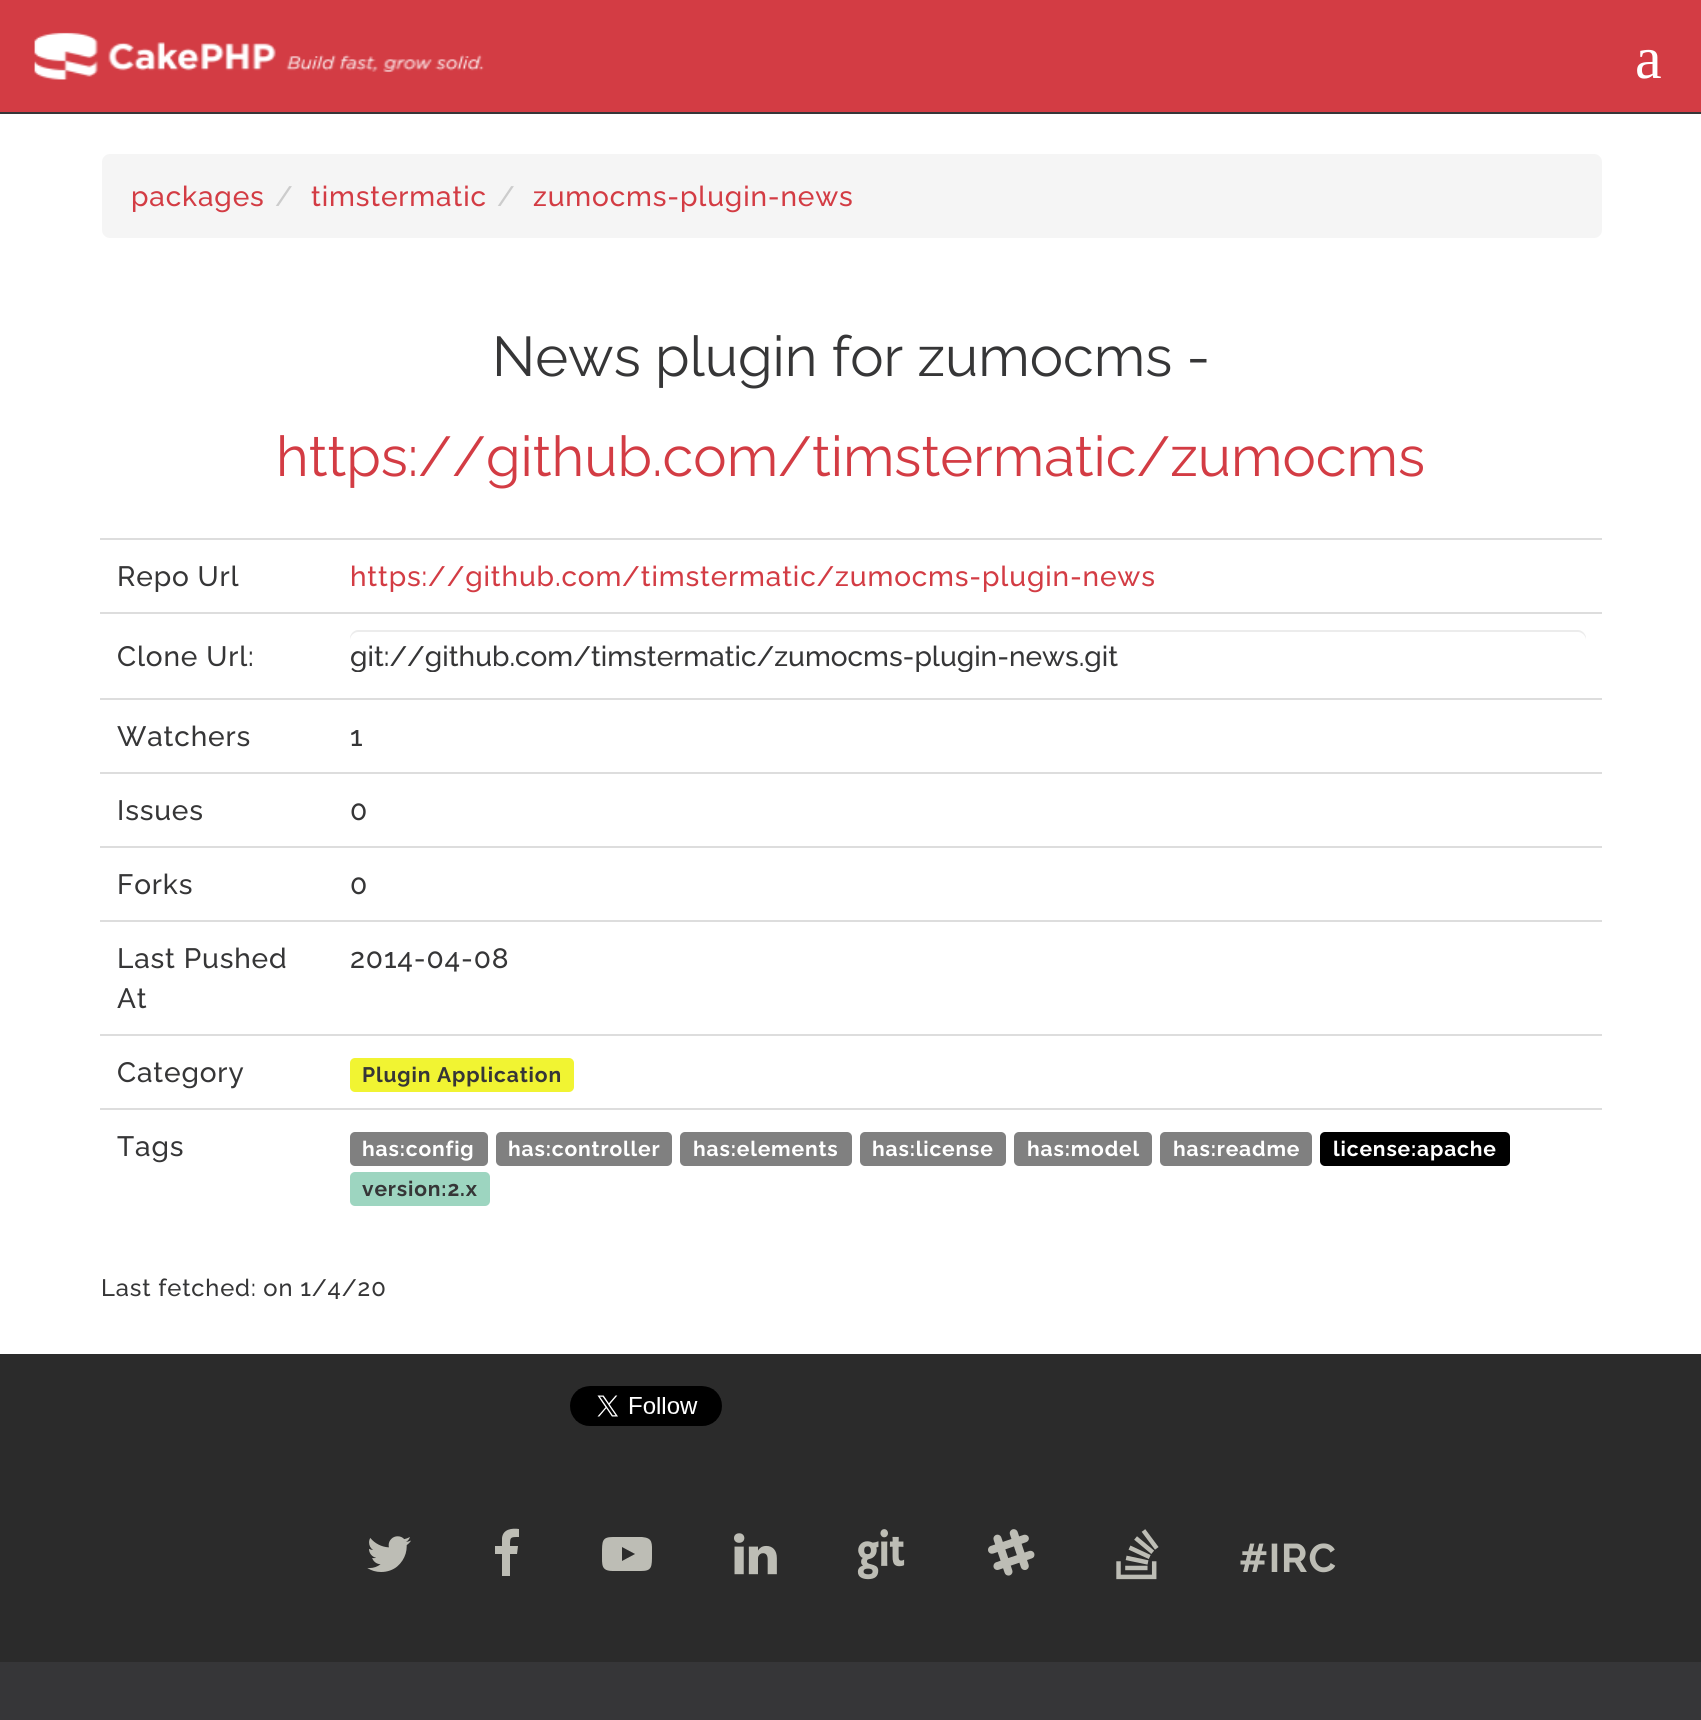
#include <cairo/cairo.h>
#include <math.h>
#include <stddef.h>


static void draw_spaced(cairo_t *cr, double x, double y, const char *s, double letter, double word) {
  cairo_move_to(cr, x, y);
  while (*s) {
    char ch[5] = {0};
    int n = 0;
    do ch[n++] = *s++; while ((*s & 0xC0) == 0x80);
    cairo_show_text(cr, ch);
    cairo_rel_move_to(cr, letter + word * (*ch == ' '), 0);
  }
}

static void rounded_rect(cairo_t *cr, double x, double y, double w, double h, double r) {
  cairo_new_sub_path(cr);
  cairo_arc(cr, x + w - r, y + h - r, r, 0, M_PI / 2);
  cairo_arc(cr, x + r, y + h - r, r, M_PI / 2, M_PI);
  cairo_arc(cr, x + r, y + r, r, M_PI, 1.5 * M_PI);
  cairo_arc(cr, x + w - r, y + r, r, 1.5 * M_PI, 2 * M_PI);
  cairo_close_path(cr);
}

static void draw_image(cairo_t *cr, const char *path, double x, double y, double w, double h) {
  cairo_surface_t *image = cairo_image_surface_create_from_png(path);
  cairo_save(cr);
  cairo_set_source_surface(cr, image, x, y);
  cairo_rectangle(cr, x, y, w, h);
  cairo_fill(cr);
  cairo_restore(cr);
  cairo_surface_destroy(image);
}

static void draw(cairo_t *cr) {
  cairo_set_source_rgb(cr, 1, 1, 1);
  cairo_paint(cr);
  cairo_set_source_rgb(cr, 211 / 255.0, 60 / 255.0, 68 / 255.0);
  cairo_rectangle(cr, 0, 0, 1701, 112);
  cairo_fill(cr);
  draw_image(cr, "images/1.png", 34, 32, 450, 48);
  cairo_set_source_rgb(cr, 54 / 255.0, 54 / 255.0, 56 / 255.0);
  cairo_rectangle(cr, 0, 112, 1701, 2);
  cairo_fill(cr);
  cairo_set_source_rgb(cr, 245 / 255.0, 245 / 255.0, 245 / 255.0);
  rounded_rect(cr, 102, 154, 1500, 84, 8);
  cairo_fill(cr);
  cairo_set_source_rgb(cr, 221 / 255.0, 221 / 255.0, 221 / 255.0);
  cairo_rectangle(cr, 100, 538, 1502, 2);
  cairo_fill(cr);
  cairo_rectangle(cr, 100, 612, 1502, 2);
  cairo_fill(cr);
  cairo_set_source_rgb(cr, 236 / 255.0, 236 / 255.0, 236 / 255.0);
  cairo_new_path(cr);
  cairo_move_to(cr, 358, 632);
  cairo_line_to(cr, 1578, 632);
  cairo_curve_to(cr, 1582, 632, 1586, 636, 1586, 640);
  cairo_line_to(cr, 1586, 638);
  cairo_curve_to(cr, 1586, 634, 1582, 630, 1578, 630);
  cairo_line_to(cr, 358, 630);
  cairo_curve_to(cr, 354, 630, 350, 634, 350, 638);
  cairo_line_to(cr, 350, 640);
  cairo_curve_to(cr, 350, 636, 354, 632, 358, 632);
  cairo_close_path(cr);
  cairo_fill(cr);
  cairo_set_source_rgb(cr, 221 / 255.0, 221 / 255.0, 221 / 255.0);
  cairo_rectangle(cr, 100, 698, 1502, 2);
  cairo_fill(cr);
  cairo_rectangle(cr, 100, 772, 1502, 2);
  cairo_fill(cr);
  cairo_rectangle(cr, 100, 846, 1502, 2);
  cairo_fill(cr);
  cairo_rectangle(cr, 100, 920, 1502, 2);
  cairo_fill(cr);
  cairo_rectangle(cr, 100, 1034, 1502, 2);
  cairo_fill(cr);
  cairo_set_source_rgb(cr, 241 / 255.0, 244 / 255.0, 50 / 255.0);
  rounded_rect(cr, 350, 1058, 224, 34, 5);
  cairo_fill(cr);
  cairo_set_source_rgb(cr, 221 / 255.0, 221 / 255.0, 221 / 255.0);
  cairo_rectangle(cr, 100, 1108, 1502, 2);
  cairo_fill(cr);
  cairo_set_source_rgb(cr, 128 / 255.0, 128 / 255.0, 128 / 255.0);
  rounded_rect(cr, 350, 1132, 138, 34, 5);
  cairo_fill(cr);
  rounded_rect(cr, 496, 1132, 176, 34, 5);
  cairo_fill(cr);
  rounded_rect(cr, 680, 1132, 172, 34, 5);
  cairo_fill(cr);
  rounded_rect(cr, 860, 1132, 146, 34, 5);
  cairo_fill(cr);
  rounded_rect(cr, 1014, 1132, 138, 34, 5);
  cairo_fill(cr);
  rounded_rect(cr, 1160, 1132, 152, 34, 5);
  cairo_fill(cr);
  cairo_set_source_rgb(cr, 0, 0, 0);
  rounded_rect(cr, 1320, 1132, 190, 34, 5);
  cairo_fill(cr);
  cairo_set_source_rgb(cr, 157 / 255.0, 213 / 255.0, 192 / 255.0);
  rounded_rect(cr, 350, 1172, 140, 34, 5);
  cairo_fill(cr);
  cairo_set_source_rgb(cr, 43 / 255.0, 43 / 255.0, 43 / 255.0);
  cairo_rectangle(cr, 0, 1354, 1701, 308);
  cairo_fill(cr);
  draw_image(cr, "images/2.png", 570, 1386, 152, 40);
  draw_image(cr, "images/3.png", 367, 1536, 44, 36);
  cairo_set_source_rgb(cr, 189 / 255.0, 189 / 255.0, 181 / 255.0);
  cairo_new_path(cr);
  cairo_move_to(cr, 519, 1529);
  cairo_line_to(cr, 519, 1537);
  cairo_curve_to(cr, 510, 1537, 510, 1537, 510, 1546);
  cairo_line_to(cr, 518, 1546);
  cairo_line_to(cr, 517, 1554);
  cairo_line_to(cr, 510, 1554);
  cairo_line_to(cr, 510, 1576);
  cairo_line_to(cr, 502, 1576);
  cairo_line_to(cr, 502, 1554);
  cairo_line_to(cr, 495, 1554);
  cairo_line_to(cr, 495, 1546);
  cairo_line_to(cr, 502, 1546);
  cairo_line_to(cr, 502, 1538);
  cairo_curve_to(cr, 503, 1529, 512, 1528, 519, 1529);
  cairo_close_path(cr);
  cairo_fill(cr);
  cairo_new_path(cr);
  cairo_move_to(cr, 622, 1561);
  cairo_line_to(cr, 635, 1554);
  cairo_line_to(cr, 622, 1547);
  cairo_close_path(cr);
  cairo_move_to(cr, 627, 1537);
  cairo_line_to(cr, 642, 1537);
  cairo_curve_to(cr, 653, 1538, 652, 1543, 652, 1554);
  cairo_curve_to(cr, 652, 1567, 652, 1571, 641, 1571);
  cairo_line_to(cr, 613, 1571);
  cairo_curve_to(cr, 601, 1571, 602, 1565, 602, 1554);
  cairo_curve_to(cr, 602, 1541, 602, 1537, 613, 1537);
  cairo_close_path(cr);
  cairo_fill(cr);
  draw_image(cr, "images/4.png", 734, 1533, 43, 42);
  draw_image(cr, "images/5.png", 857, 1529, 48, 51);
  draw_image(cr, "images/6.png", 988, 1529, 47, 47);
  draw_image(cr, "images/7.png", 1116, 1529, 43, 51);
  cairo_set_source_rgb(cr, 54 / 255.0, 54 / 255.0, 56 / 255.0);
  cairo_rectangle(cr, 0, 1662, 1701, 58);
  cairo_fill(cr);
  cairo_select_font_face(cr, "Liberation Serif", CAIRO_FONT_SLANT_NORMAL, CAIRO_FONT_WEIGHT_NORMAL);
  cairo_set_font_size(cr, 60);
  cairo_set_source_rgb(cr, 1, 1, 1);
  cairo_move_to(cr, 1635, 78);
  cairo_show_text(cr, "a");
  cairo_select_font_face(cr, "Raleway Medium", CAIRO_FONT_SLANT_NORMAL, CAIRO_FONT_WEIGHT_NORMAL);
  cairo_set_font_size(cr, 28);
  cairo_set_source_rgb(cr, 211 / 255.0, 60 / 255.0, 68 / 255.0);
  draw_spaced(cr, 131, 206, "packages", 0.85, 0);
  cairo_set_source_rgb(cr, 204 / 255.0, 204 / 255.0, 204 / 255.0);
  draw_spaced(cr, 275, 206, "/", 0.85, 0);
  cairo_set_source_rgb(cr, 211 / 255.0, 60 / 255.0, 68 / 255.0);
  draw_spaced(cr, 311, 206, "timstermatic", 0.85, 0);
  cairo_set_source_rgb(cr, 204 / 255.0, 204 / 255.0, 204 / 255.0);
  draw_spaced(cr, 497, 206, "/", 0.85, 0);
  cairo_set_source_rgb(cr, 211 / 255.0, 60 / 255.0, 68 / 255.0);
  draw_spaced(cr, 533, 206, "zumocms-plugin-news", 0.85, 0);
  cairo_select_font_face(cr, "Raleway", CAIRO_FONT_SLANT_NORMAL, CAIRO_FONT_WEIGHT_NORMAL);
  cairo_set_font_size(cr, 56);
  cairo_set_source_rgb(cr, 54 / 255.0, 54 / 255.0, 55 / 255.0);
  cairo_move_to(cr, 492, 376);
  cairo_show_text(cr, "News plugin for zumocms -");
  cairo_set_source_rgb(cr, 211 / 255.0, 60 / 255.0, 68 / 255.0);
  cairo_move_to(cr, 276, 476);
  cairo_show_text(cr, "https://github.com/timstermatic/zumocms");
  cairo_select_font_face(cr, "Raleway Medium", CAIRO_FONT_SLANT_NORMAL, CAIRO_FONT_WEIGHT_NORMAL);
  cairo_set_font_size(cr, 28);
  cairo_set_source_rgb(cr, 54 / 255.0, 54 / 255.0, 55 / 255.0);
  draw_spaced(cr, 117, 586, "Repo Url", 0.85, 0);
  cairo_set_source_rgb(cr, 211 / 255.0, 60 / 255.0, 68 / 255.0);
  draw_spaced(cr, 350, 586, "https://github.com/timstermatic/zumocms-plugin-news", 0.85, 0);
  cairo_set_source_rgb(cr, 54 / 255.0, 54 / 255.0, 55 / 255.0);
  draw_spaced(cr, 117, 666, "Clone Url:", 0.85, 0);
  cairo_save(cr);
  cairo_rectangle(cr, 350, 640, 1236, 32);
  cairo_clip(cr);
  cairo_move_to(cr, 350, 666);
  cairo_show_text(cr, "git://github.com/timstermatic/zumocms-plugin-news.git");
  cairo_restore(cr);
  draw_spaced(cr, 117, 746, "Watchers", 0.85, 0);
  draw_spaced(cr, 350, 746, "1", 0.85, 0);
  draw_spaced(cr, 117, 820, "Issues", 0.85, 0);
  draw_spaced(cr, 350, 820, "0", 0.85, 0);
  draw_spaced(cr, 117, 894, "Forks", 0.85, 0);
  draw_spaced(cr, 350, 894, "0", 0.85, 0);
  draw_spaced(cr, 117, 968, "Last Pushed", 0.85, 0);
  draw_spaced(cr, 117, 1008, "At", 0.85, 0);
  draw_spaced(cr, 350, 968, "2014-04-08", 0.85, 0);
  draw_spaced(cr, 117, 1082, "Category", 0.85, 0);
  cairo_select_font_face(cr, "Raleway", CAIRO_FONT_SLANT_NORMAL, CAIRO_FONT_WEIGHT_BOLD);
  cairo_set_font_size(cr, 21);
  draw_spaced(cr, 362, 1082, "Plugin Application", 0.85, 0);
  cairo_select_font_face(cr, "Raleway Medium", CAIRO_FONT_SLANT_NORMAL, CAIRO_FONT_WEIGHT_NORMAL);
  cairo_set_font_size(cr, 28);
  draw_spaced(cr, 117, 1156, "Tags", 0.85, 0);
  cairo_select_font_face(cr, "Raleway", CAIRO_FONT_SLANT_NORMAL, CAIRO_FONT_WEIGHT_BOLD);
  cairo_set_font_size(cr, 21);
  cairo_set_source_rgb(cr, 1, 1, 1);
  draw_spaced(cr, 362, 1156, "has:config", 0.85, 0);
  draw_spaced(cr, 508, 1156, "has:controller", 0.85, 0);
  draw_spaced(cr, 693, 1156, "has:elements", 0.85, 0);
  draw_spaced(cr, 872, 1156, "has:license", 0.85, 0);
  draw_spaced(cr, 1027, 1156, "has:model", 0.85, 0);
  draw_spaced(cr, 1173, 1156, "has:readme", 0.85, 0);
  draw_spaced(cr, 1333, 1156, "license:apache", 0.85, 0);
  cairo_set_source_rgb(cr, 54 / 255.0, 54 / 255.0, 55 / 255.0);
  draw_spaced(cr, 362, 1196, "version:2.x", 0.85, 0);
  cairo_select_font_face(cr, "Raleway Medium", CAIRO_FONT_SLANT_NORMAL, CAIRO_FONT_WEIGHT_NORMAL);
  cairo_set_font_size(cr, 23.75);
  draw_spaced(cr, 101, 1296, "Last fetched: on 1/4/20", 0.85, 0);
  cairo_select_font_face(cr, "Raleway", CAIRO_FONT_SLANT_NORMAL, CAIRO_FONT_WEIGHT_BOLD);
  cairo_set_font_size(cr, 40);
  cairo_set_source_rgb(cr, 189 / 255.0, 189 / 255.0, 181 / 255.0);
  draw_spaced(cr, 1239, 1572, "#IRC", 0.85, 0);
}

int main(void) {
  cairo_surface_t *surface = cairo_image_surface_create(CAIRO_FORMAT_RGB24, 1701, 1720);
  cairo_t *cr = cairo_create(surface);
  cairo_font_options_t *options = cairo_font_options_create();
  cairo_font_options_set_hint_metrics(options, CAIRO_HINT_METRICS_OFF);
  cairo_font_options_set_hint_style(options, CAIRO_HINT_STYLE_NONE);
  cairo_set_font_options(cr, options);
  cairo_set_miter_limit(cr, 4);
  draw(cr);
  cairo_surface_write_to_png(surface, "out.png");
  cairo_font_options_destroy(options);
  cairo_destroy(cr);
  cairo_surface_destroy(surface);
  return 0;
}
